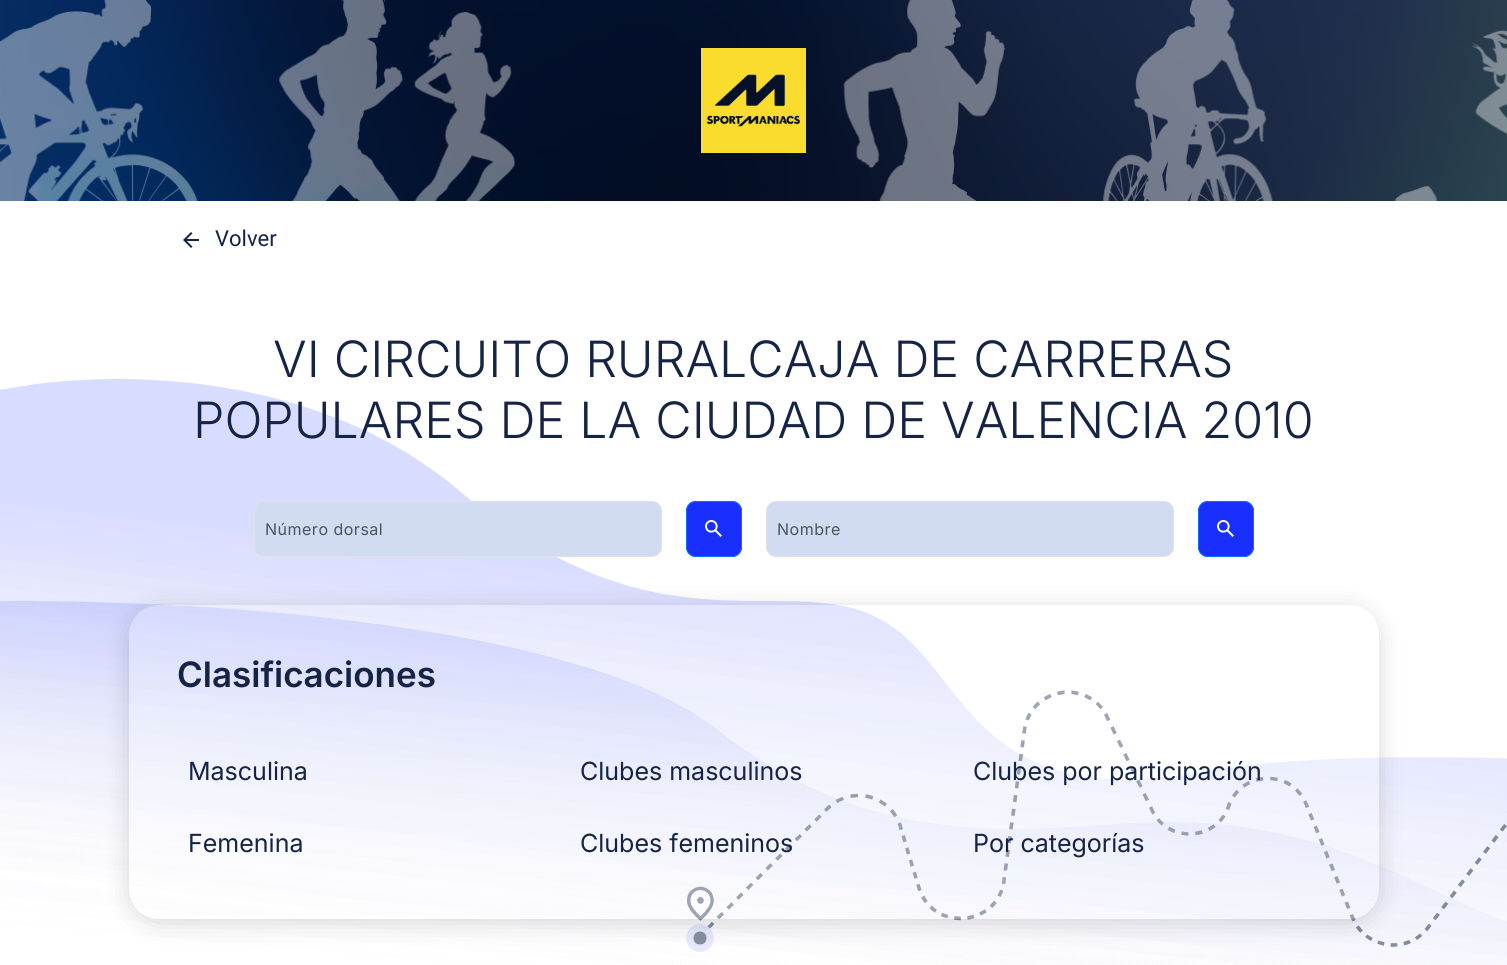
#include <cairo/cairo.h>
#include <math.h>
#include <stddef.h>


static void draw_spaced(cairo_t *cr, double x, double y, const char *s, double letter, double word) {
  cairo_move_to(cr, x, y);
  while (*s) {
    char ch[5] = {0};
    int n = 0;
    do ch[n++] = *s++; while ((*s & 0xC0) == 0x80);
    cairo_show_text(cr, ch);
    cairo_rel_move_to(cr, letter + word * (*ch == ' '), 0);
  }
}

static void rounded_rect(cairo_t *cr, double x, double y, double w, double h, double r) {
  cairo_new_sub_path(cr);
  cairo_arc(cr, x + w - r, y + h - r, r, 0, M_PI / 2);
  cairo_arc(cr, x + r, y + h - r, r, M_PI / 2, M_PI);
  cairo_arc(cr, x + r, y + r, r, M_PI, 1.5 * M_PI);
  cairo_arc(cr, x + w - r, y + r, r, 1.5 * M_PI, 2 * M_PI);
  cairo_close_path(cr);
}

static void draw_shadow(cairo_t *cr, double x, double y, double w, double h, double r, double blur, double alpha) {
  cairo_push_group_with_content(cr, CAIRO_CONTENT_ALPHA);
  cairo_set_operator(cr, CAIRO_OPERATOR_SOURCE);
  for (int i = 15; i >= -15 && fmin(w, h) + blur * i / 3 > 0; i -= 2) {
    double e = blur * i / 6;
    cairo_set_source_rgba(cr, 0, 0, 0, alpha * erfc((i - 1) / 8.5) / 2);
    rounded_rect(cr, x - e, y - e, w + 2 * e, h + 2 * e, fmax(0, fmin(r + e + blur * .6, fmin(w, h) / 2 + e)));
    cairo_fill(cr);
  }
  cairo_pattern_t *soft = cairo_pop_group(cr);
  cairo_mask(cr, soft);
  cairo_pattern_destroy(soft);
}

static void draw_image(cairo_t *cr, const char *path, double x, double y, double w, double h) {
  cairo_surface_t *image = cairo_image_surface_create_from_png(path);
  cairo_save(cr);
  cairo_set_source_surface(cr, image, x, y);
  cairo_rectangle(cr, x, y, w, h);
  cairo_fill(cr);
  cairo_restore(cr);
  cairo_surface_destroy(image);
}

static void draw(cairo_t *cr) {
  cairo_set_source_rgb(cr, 1, 1, 1);
  cairo_paint(cr);
  draw_image(cr, "images/1.png", 0, 0, 1507, 201);
  draw_image(cr, "images/2.png", 701, 48, 105, 105);
  draw_image(cr, "images/3.png", 183, 232, 16, 16);
  draw_image(cr, "images/4.png", 0, 379, 1507, 586);
  draw_image(cr, "images/5.png", 0, 379, 1507, 586);
  cairo_set_source_rgb(cr, 209 / 255.0, 219 / 255.0, 241 / 255.0);
  rounded_rect(cr, 254.5, 501.5, 407, 55, 9.5);
  cairo_fill_preserve(cr);
  cairo_set_source_rgb(cr, 222 / 255.0, 226 / 255.0, 230 / 255.0);
  cairo_set_line_width(cr, 1);
  cairo_stroke(cr);
  cairo_set_source_rgb(cr, 24 / 255.0, 47 / 255.0, 254 / 255.0);
  rounded_rect(cr, 686, 501, 56, 56, 10);
  cairo_fill(cr);
  draw_image(cr, "images/6.png", 705, 520, 17, 17);
  rounded_rect(cr, 686.5, 501.5, 55, 55, 9.5);
  cairo_set_source_rgb(cr, 13 / 255.0, 110 / 255.0, 253 / 255.0);
  cairo_stroke(cr);
  cairo_set_source_rgb(cr, 209 / 255.0, 219 / 255.0, 241 / 255.0);
  rounded_rect(cr, 766.5, 501.5, 407, 55, 9.5);
  cairo_fill_preserve(cr);
  cairo_set_source_rgb(cr, 222 / 255.0, 226 / 255.0, 230 / 255.0);
  cairo_stroke(cr);
  cairo_set_source_rgb(cr, 24 / 255.0, 47 / 255.0, 254 / 255.0);
  rounded_rect(cr, 1198, 501, 56, 56, 10);
  cairo_fill(cr);
  draw_image(cr, "images/6.png", 1217, 520, 17, 17);
  rounded_rect(cr, 1198.5, 501.5, 55, 55, 9.5);
  cairo_set_source_rgb(cr, 13 / 255.0, 110 / 255.0, 253 / 255.0);
  cairo_stroke(cr);
  cairo_save(cr);
  cairo_set_fill_rule(cr, CAIRO_FILL_RULE_EVEN_ODD);
  cairo_new_path(cr);
  cairo_move_to(cr, 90, 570);
  cairo_line_to(cr, 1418, 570);
  cairo_line_to(cr, 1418, 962);
  cairo_line_to(cr, 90, 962);
  cairo_close_path(cr);
  cairo_move_to(cr, 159, 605);
  cairo_line_to(cr, 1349, 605);
  cairo_curve_to(cr, 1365.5, 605, 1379, 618.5, 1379, 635);
  cairo_line_to(cr, 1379, 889);
  cairo_curve_to(cr, 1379, 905.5, 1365.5, 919, 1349, 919);
  cairo_line_to(cr, 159, 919);
  cairo_curve_to(cr, 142.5, 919, 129, 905.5, 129, 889);
  cairo_line_to(cr, 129, 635);
  cairo_curve_to(cr, 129, 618.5, 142.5, 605, 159, 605);
  cairo_close_path(cr);
  cairo_clip(cr);
  cairo_set_source_rgb(cr, 0, 0, 0);
  draw_shadow(cr, 129, 609, 1250, 314, 30, 12.5, 0.15);
  cairo_restore(cr);
  cairo_set_source_rgba(cr, 1, 1, 1, 0.2);
  rounded_rect(cr, 129, 605, 1250, 314, 30);
  cairo_fill(cr);
  cairo_select_font_face(cr, "Roboto", CAIRO_FONT_SLANT_NORMAL, CAIRO_FONT_WEIGHT_NORMAL);
  cairo_set_font_size(cr, 22);
  cairo_set_source_rgb(cr, 21 / 255.0, 36 / 255.0, 69 / 255.0);
  cairo_move_to(cr, 215, 246);
  cairo_show_text(cr, "Volver");
  cairo_select_font_face(cr, "Inter Light", CAIRO_FONT_SLANT_NORMAL, CAIRO_FONT_WEIGHT_NORMAL);
  cairo_set_font_size(cr, 50);
  cairo_move_to(cr, 273, 377);
  cairo_show_text(cr, "VI CIRCUITO RURALCAJA DE CARRERAS");
  cairo_move_to(cr, 193, 438);
  cairo_show_text(cr, "POPULARES DE LA CIUDAD DE VALENCIA 2010");
  cairo_select_font_face(cr, "Inter", CAIRO_FONT_SLANT_NORMAL, CAIRO_FONT_WEIGHT_NORMAL);
  cairo_set_font_size(cr, 16);
  cairo_set_source_rgb(cr, 77 / 255.0, 83 / 255.0, 91 / 255.0);
  draw_spaced(cr, 265, 535, "Número dorsal", 0.5, 0);
  draw_spaced(cr, 777, 535, "Nombre", 0.5, 0);
  cairo_select_font_face(cr, "Inter SemiBold", CAIRO_FONT_SLANT_NORMAL, CAIRO_FONT_WEIGHT_NORMAL);
  cairo_set_font_size(cr, 35);
  cairo_set_source_rgb(cr, 21 / 255.0, 36 / 255.0, 69 / 255.0);
  cairo_move_to(cr, 177, 687);
  cairo_show_text(cr, "Clasificaciones");
  cairo_select_font_face(cr, "Inter", CAIRO_FONT_SLANT_NORMAL, CAIRO_FONT_WEIGHT_NORMAL);
  cairo_set_font_size(cr, 25);
  cairo_move_to(cr, 188, 780);
  cairo_show_text(cr, "Masculina");
  cairo_move_to(cr, 580, 780);
  cairo_show_text(cr, "Clubes masculinos");
  cairo_move_to(cr, 973, 780);
  cairo_show_text(cr, "Clubes por participación");
  cairo_move_to(cr, 188, 852);
  cairo_show_text(cr, "Femenina");
  cairo_move_to(cr, 580, 852);
  cairo_show_text(cr, "Clubes femeninos");
  cairo_move_to(cr, 973, 852);
  cairo_show_text(cr, "Por categorías");
}

int main(void) {
  cairo_surface_t *surface = cairo_image_surface_create(CAIRO_FORMAT_RGB24, 1507, 965);
  cairo_t *cr = cairo_create(surface);
  cairo_font_options_t *options = cairo_font_options_create();
  cairo_font_options_set_hint_metrics(options, CAIRO_HINT_METRICS_OFF);
  cairo_font_options_set_hint_style(options, CAIRO_HINT_STYLE_NONE);
  cairo_set_font_options(cr, options);
  cairo_set_miter_limit(cr, 4);
  draw(cr);
  cairo_surface_write_to_png(surface, "out.png");
  cairo_font_options_destroy(options);
  cairo_destroy(cr);
  cairo_surface_destroy(surface);
  return 0;
}
